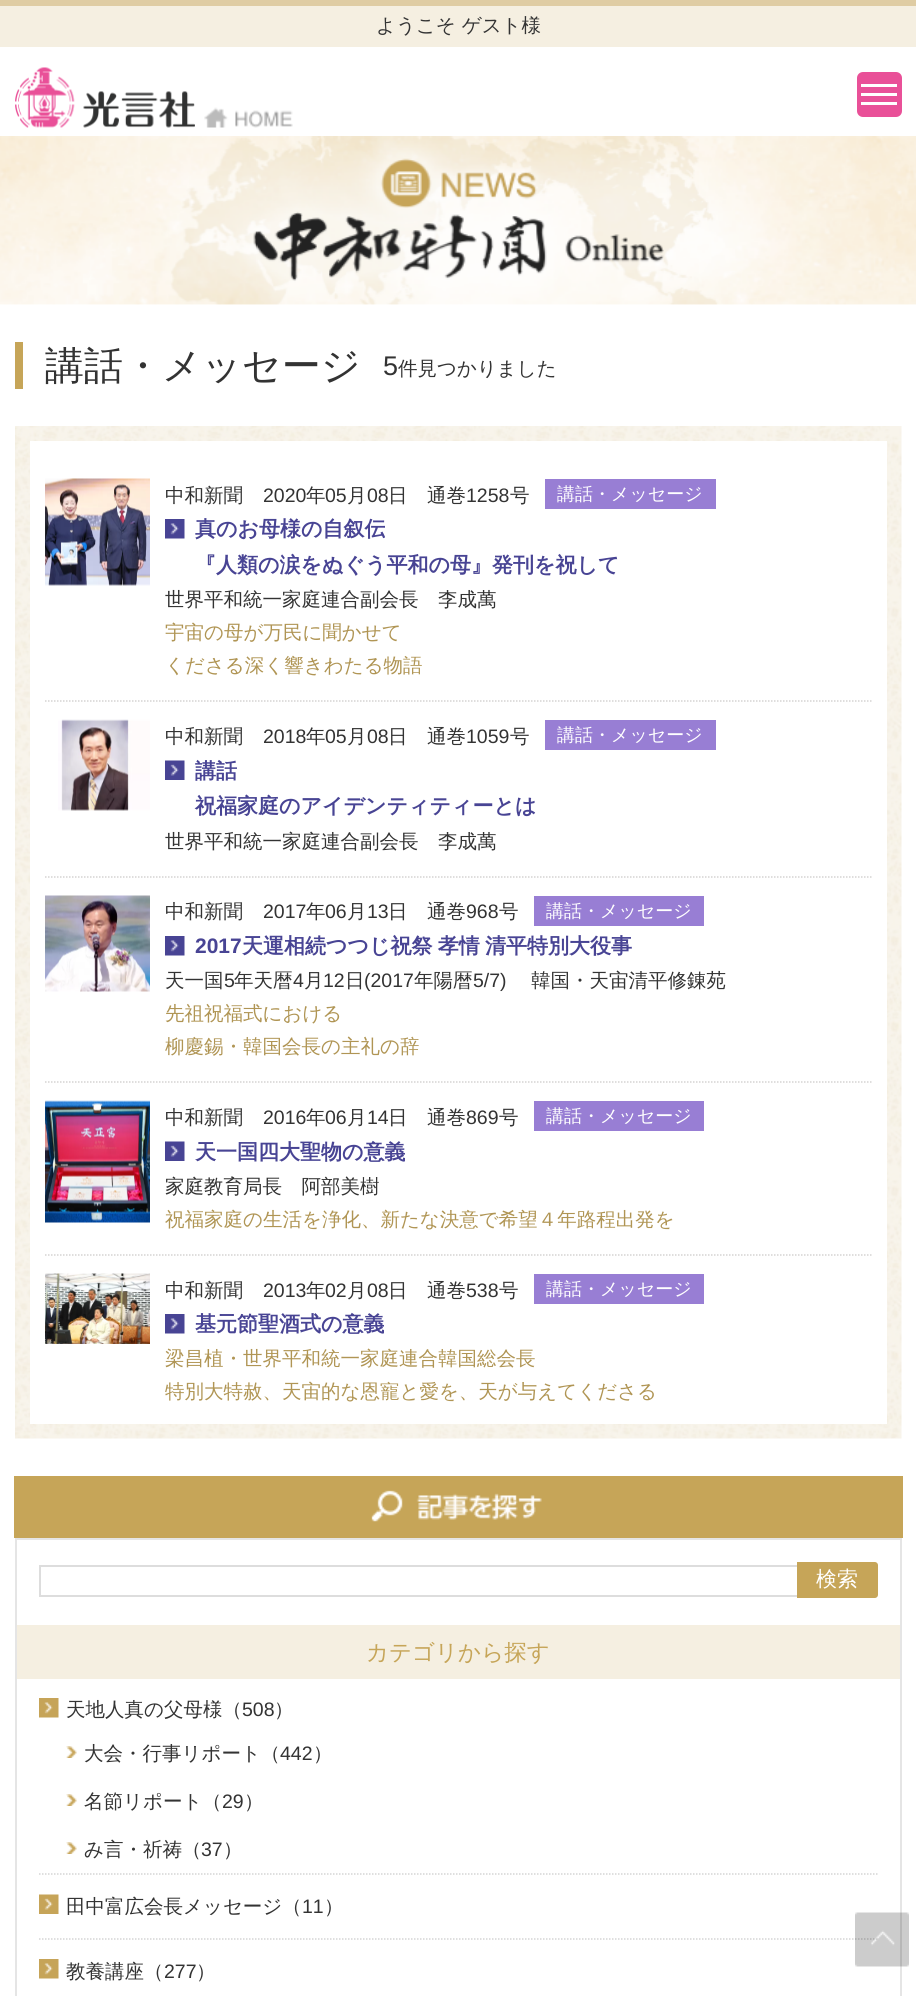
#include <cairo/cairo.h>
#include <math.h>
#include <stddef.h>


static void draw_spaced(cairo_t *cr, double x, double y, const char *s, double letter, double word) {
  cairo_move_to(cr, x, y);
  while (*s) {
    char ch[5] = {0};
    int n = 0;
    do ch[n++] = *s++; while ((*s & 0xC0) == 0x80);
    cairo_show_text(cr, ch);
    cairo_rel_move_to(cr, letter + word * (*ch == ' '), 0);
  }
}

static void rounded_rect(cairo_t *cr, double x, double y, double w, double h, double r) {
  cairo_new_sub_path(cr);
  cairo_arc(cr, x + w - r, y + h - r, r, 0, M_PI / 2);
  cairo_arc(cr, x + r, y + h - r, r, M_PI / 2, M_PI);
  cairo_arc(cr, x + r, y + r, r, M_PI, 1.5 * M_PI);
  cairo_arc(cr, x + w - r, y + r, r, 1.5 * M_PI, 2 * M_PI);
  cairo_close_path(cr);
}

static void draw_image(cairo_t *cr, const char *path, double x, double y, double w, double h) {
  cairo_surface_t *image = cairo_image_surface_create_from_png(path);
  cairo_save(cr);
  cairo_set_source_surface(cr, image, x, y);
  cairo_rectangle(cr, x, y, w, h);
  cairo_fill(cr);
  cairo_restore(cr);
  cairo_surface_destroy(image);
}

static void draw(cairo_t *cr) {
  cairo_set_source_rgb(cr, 1, 1, 1);
  cairo_paint(cr);
  cairo_set_source_rgb(cr, 245 / 255.0, 239 / 255.0, 225 / 255.0);
  cairo_rectangle(cr, 0, 6, 916, 41);
  cairo_fill(cr);
  cairo_set_source_rgb(cr, 223 / 255.0, 204 / 255.0, 163 / 255.0);
  cairo_rectangle(cr, 0, 0, 916, 6);
  cairo_fill(cr);
  draw_image(cr, "images/1.png", 15, 67, 180, 61);
  draw_image(cr, "images/2.png", 204, 107, 89, 21);
  cairo_set_source_rgb(cr, 233 / 255.0, 80 / 255.0, 152 / 255.0);
  rounded_rect(cr, 857, 72, 45, 45, 6);
  cairo_fill(cr);
  cairo_set_source_rgb(cr, 1, 1, 1);
  cairo_rectangle(cr, 861, 84, 36, 3);
  cairo_fill(cr);
  cairo_rectangle(cr, 861, 93, 36, 3);
  cairo_fill(cr);
  cairo_rectangle(cr, 861, 102, 36, 3);
  cairo_fill(cr);
  draw_image(cr, "images/3.png", 0, 136, 916, 169);
  cairo_set_source_rgb(cr, 198 / 255.0, 165 / 255.0, 88 / 255.0);
  cairo_rectangle(cr, 15, 342, 8, 47);
  cairo_fill(cr);
  draw_image(cr, "images/4.png", 15, 426, 887, 1013);
  cairo_set_source_rgb(cr, 1, 1, 1);
  cairo_rectangle(cr, 30, 441, 857, 983);
  cairo_fill(cr);
  draw_image(cr, "images/5.png", 45, 478, 105, 108);
  cairo_set_source_rgb(cr, 152 / 255.0, 126 / 255.0, 212 / 255.0);
  cairo_rectangle(cr, 545, 479, 171, 30);
  cairo_fill(cr);
  draw_image(cr, "images/6.png", 165, 519, 20, 20);
  cairo_new_path(cr);
  cairo_move_to(cr, 45, 701);
  cairo_line_to(cr, 871.5, 701);
  cairo_set_source_rgb(cr, 212 / 255.0, 211 / 255.0, 210 / 255.0);
  cairo_set_line_width(cr, 1.5);
  cairo_set_dash(cr, (double[]){1.5, 1.5}, 2, 0);
  cairo_stroke(cr);
  draw_image(cr, "images/7.png", 58, 719, 92, 92);
  cairo_set_source_rgb(cr, 152 / 255.0, 126 / 255.0, 212 / 255.0);
  cairo_rectangle(cr, 545, 720, 171, 30);
  cairo_fill(cr);
  draw_image(cr, "images/8.png", 165, 760, 20, 20);
  cairo_new_path(cr);
  cairo_move_to(cr, 45, 877);
  cairo_line_to(cr, 871.5, 877);
  cairo_set_source_rgb(cr, 212 / 255.0, 211 / 255.0, 210 / 255.0);
  cairo_stroke(cr);
  draw_image(cr, "images/9.png", 45, 895, 105, 97);
  cairo_set_source_rgb(cr, 152 / 255.0, 126 / 255.0, 212 / 255.0);
  cairo_rectangle(cr, 534, 896, 170, 30);
  cairo_fill(cr);
  draw_image(cr, "images/6.png", 165, 936, 20, 20);
  cairo_new_path(cr);
  cairo_move_to(cr, 45, 1082);
  cairo_line_to(cr, 871.5, 1082);
  cairo_set_source_rgb(cr, 212 / 255.0, 211 / 255.0, 210 / 255.0);
  cairo_stroke(cr);
  draw_image(cr, "images/10.png", 45, 1100, 105, 123);
  cairo_set_source_rgb(cr, 152 / 255.0, 126 / 255.0, 212 / 255.0);
  cairo_rectangle(cr, 534, 1101, 170, 30);
  cairo_fill(cr);
  draw_image(cr, "images/8.png", 165, 1141, 20, 20);
  cairo_new_path(cr);
  cairo_move_to(cr, 45, 1255);
  cairo_line_to(cr, 871.5, 1255);
  cairo_set_source_rgb(cr, 212 / 255.0, 211 / 255.0, 210 / 255.0);
  cairo_stroke(cr);
  draw_image(cr, "images/11.png", 45, 1273, 105, 71);
  cairo_set_source_rgb(cr, 152 / 255.0, 126 / 255.0, 212 / 255.0);
  cairo_rectangle(cr, 534, 1274, 170, 30);
  cairo_fill(cr);
  draw_image(cr, "images/6.png", 165, 1314, 20, 20);
  cairo_set_source_rgb(cr, 198 / 255.0, 165 / 255.0, 88 / 255.0);
  cairo_rectangle(cr, 14, 1476, 889, 62);
  cairo_fill(cr);
  draw_image(cr, "images/12.png", 371, 1490, 171, 32);
  cairo_rectangle(cr, 16, 1539, 885, 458);
  cairo_set_source_rgb(cr, 229 / 255.0, 229 / 255.0, 229 / 255.0);
  cairo_set_line_width(cr, 2);
  cairo_set_dash(cr, NULL, 0, 0);
  cairo_stroke(cr);
  cairo_set_source_rgb(cr, 221 / 255.0, 221 / 255.0, 221 / 255.0);
  cairo_rectangle(cr, 39, 1565, 758, 2);
  cairo_fill(cr);
  cairo_rectangle(cr, 39, 1595, 758, 2);
  cairo_fill(cr);
  cairo_rectangle(cr, 39, 1565, 2, 31);
  cairo_fill(cr);
  cairo_set_source_rgb(cr, 198 / 255.0, 165 / 255.0, 88 / 255.0);
  cairo_new_path(cr);
  cairo_move_to(cr, 797, 1562);
  cairo_line_to(cr, 875, 1562);
  cairo_curve_to(cr, 876.5, 1562, 878, 1563.5, 878, 1565);
  cairo_line_to(cr, 878, 1595);
  cairo_curve_to(cr, 878, 1596.5, 876.5, 1598, 875, 1598);
  cairo_line_to(cr, 797, 1598);
  cairo_close_path(cr);
  cairo_fill(cr);
  cairo_set_source_rgb(cr, 245 / 255.0, 239 / 255.0, 225 / 255.0);
  cairo_rectangle(cr, 17, 1625, 883, 54);
  cairo_fill(cr);
  draw_image(cr, "images/13.png", 39, 1698, 20, 20);
  draw_image(cr, "images/14.png", 66, 1746, 11, 12);
  draw_image(cr, "images/14.png", 66, 1794, 11, 12);
  draw_image(cr, "images/14.png", 66, 1842, 11, 12);
  cairo_new_path(cr);
  cairo_move_to(cr, 39, 1874);
  cairo_line_to(cr, 877.5, 1874);
  cairo_set_source_rgb(cr, 213 / 255.0, 213 / 255.0, 213 / 255.0);
  cairo_set_line_width(cr, 1.5);
  cairo_set_dash(cr, (double[]){1.5, 1.5}, 2, 0);
  cairo_stroke(cr);
  draw_image(cr, "images/15.png", 39, 1894, 20, 20);
  cairo_new_path(cr);
  cairo_move_to(cr, 39, 1939);
  cairo_line_to(cr, 877.5, 1939);
  cairo_stroke(cr);
  draw_image(cr, "images/13.png", 39, 1959, 20, 20);
  draw_image(cr, "images/16.png", 855, 1912, 54, 55);
  cairo_select_font_face(cr, "WenQuanYi Zen Hei Medium", CAIRO_FONT_SLANT_NORMAL, CAIRO_FONT_WEIGHT_NORMAL);
  cairo_set_font_size(cr, 19.5);
  cairo_set_source_rgb(cr, 51 / 255.0, 51 / 255.0, 51 / 255.0);
  cairo_move_to(cr, 376, 32);
  cairo_show_text(cr, "ようこそ ゲスト様");
  cairo_set_font_size(cr, 39);
  cairo_move_to(cr, 45, 379);
  cairo_show_text(cr, "講話・メッセージ");
  cairo_select_font_face(cr, "Liberation Sans", CAIRO_FONT_SLANT_NORMAL, CAIRO_FONT_WEIGHT_NORMAL);
  cairo_set_font_size(cr, 27);
  cairo_move_to(cr, 383, 375);
  cairo_show_text(cr, "5");
  cairo_select_font_face(cr, "WenQuanYi Zen Hei Medium", CAIRO_FONT_SLANT_NORMAL, CAIRO_FONT_WEIGHT_NORMAL);
  cairo_set_font_size(cr, 19.5);
  cairo_move_to(cr, 398, 375);
  cairo_show_text(cr, "件見つかりました");
  cairo_move_to(cr, 165, 502);
  cairo_show_text(cr, "中和新聞");
  cairo_select_font_face(cr, "Liberation Sans", CAIRO_FONT_SLANT_NORMAL, CAIRO_FONT_WEIGHT_NORMAL);
  cairo_move_to(cr, 263, 502);
  cairo_show_text(cr, "2020");
  cairo_select_font_face(cr, "WenQuanYi Zen Hei Medium", CAIRO_FONT_SLANT_NORMAL, CAIRO_FONT_WEIGHT_NORMAL);
  cairo_move_to(cr, 306, 502);
  cairo_show_text(cr, "年");
  cairo_select_font_face(cr, "Liberation Sans", CAIRO_FONT_SLANT_NORMAL, CAIRO_FONT_WEIGHT_NORMAL);
  cairo_move_to(cr, 325, 502);
  cairo_show_text(cr, "05");
  cairo_select_font_face(cr, "WenQuanYi Zen Hei Medium", CAIRO_FONT_SLANT_NORMAL, CAIRO_FONT_WEIGHT_NORMAL);
  cairo_move_to(cr, 347, 502);
  cairo_show_text(cr, "月");
  cairo_select_font_face(cr, "Liberation Sans", CAIRO_FONT_SLANT_NORMAL, CAIRO_FONT_WEIGHT_NORMAL);
  cairo_move_to(cr, 367, 502);
  cairo_show_text(cr, "08");
  cairo_select_font_face(cr, "WenQuanYi Zen Hei Medium", CAIRO_FONT_SLANT_NORMAL, CAIRO_FONT_WEIGHT_NORMAL);
  cairo_move_to(cr, 388, 502);
  cairo_show_text(cr, "日　通巻");
  cairo_select_font_face(cr, "Liberation Sans", CAIRO_FONT_SLANT_NORMAL, CAIRO_FONT_WEIGHT_NORMAL);
  cairo_move_to(cr, 466, 502);
  cairo_show_text(cr, "1258");
  cairo_select_font_face(cr, "WenQuanYi Zen Hei Medium", CAIRO_FONT_SLANT_NORMAL, CAIRO_FONT_WEIGHT_NORMAL);
  cairo_move_to(cr, 510, 502);
  cairo_show_text(cr, "号");
  cairo_set_font_size(cr, 18);
  cairo_set_source_rgb(cr, 1, 1, 1);
  cairo_move_to(cr, 557, 500);
  cairo_show_text(cr, "講話・メッセージ");
  cairo_select_font_face(cr, "WenQuanYi Zen Hei", CAIRO_FONT_SLANT_NORMAL, CAIRO_FONT_WEIGHT_BOLD);
  cairo_set_font_size(cr, 21);
  cairo_set_source_rgb(cr, 72 / 255.0, 68 / 255.0, 148 / 255.0);
  cairo_move_to(cr, 195, 536);
  cairo_show_text(cr, "真のお母様の自叙伝");
  cairo_move_to(cr, 195, 572);
  cairo_show_text(cr, "『人類の涙をぬぐう平和の母』発刊を祝して");
  cairo_select_font_face(cr, "WenQuanYi Zen Hei Medium", CAIRO_FONT_SLANT_NORMAL, CAIRO_FONT_WEIGHT_NORMAL);
  cairo_set_font_size(cr, 19.5);
  cairo_set_source_rgb(cr, 51 / 255.0, 51 / 255.0, 51 / 255.0);
  cairo_move_to(cr, 165, 606);
  cairo_show_text(cr, "世界平和統一家庭連合副会長　李成萬");
  cairo_set_source_rgb(cr, 176 / 255.0, 149 / 255.0, 84 / 255.0);
  cairo_move_to(cr, 165, 639);
  cairo_show_text(cr, "宇宙の母が万民に聞かせて");
  cairo_move_to(cr, 165, 672);
  cairo_show_text(cr, "くださる深く響きわたる物語");
  cairo_set_source_rgb(cr, 51 / 255.0, 51 / 255.0, 51 / 255.0);
  cairo_move_to(cr, 165, 743);
  cairo_show_text(cr, "中和新聞");
  cairo_select_font_face(cr, "Liberation Sans", CAIRO_FONT_SLANT_NORMAL, CAIRO_FONT_WEIGHT_NORMAL);
  cairo_move_to(cr, 263, 743);
  cairo_show_text(cr, "2018");
  cairo_select_font_face(cr, "WenQuanYi Zen Hei Medium", CAIRO_FONT_SLANT_NORMAL, CAIRO_FONT_WEIGHT_NORMAL);
  cairo_move_to(cr, 306, 743);
  cairo_show_text(cr, "年");
  cairo_select_font_face(cr, "Liberation Sans", CAIRO_FONT_SLANT_NORMAL, CAIRO_FONT_WEIGHT_NORMAL);
  cairo_move_to(cr, 325, 743);
  cairo_show_text(cr, "05");
  cairo_select_font_face(cr, "WenQuanYi Zen Hei Medium", CAIRO_FONT_SLANT_NORMAL, CAIRO_FONT_WEIGHT_NORMAL);
  cairo_move_to(cr, 347, 743);
  cairo_show_text(cr, "月");
  cairo_select_font_face(cr, "Liberation Sans", CAIRO_FONT_SLANT_NORMAL, CAIRO_FONT_WEIGHT_NORMAL);
  cairo_move_to(cr, 367, 743);
  cairo_show_text(cr, "08");
  cairo_select_font_face(cr, "WenQuanYi Zen Hei Medium", CAIRO_FONT_SLANT_NORMAL, CAIRO_FONT_WEIGHT_NORMAL);
  cairo_move_to(cr, 388, 743);
  cairo_show_text(cr, "日　通巻");
  cairo_select_font_face(cr, "Liberation Sans", CAIRO_FONT_SLANT_NORMAL, CAIRO_FONT_WEIGHT_NORMAL);
  cairo_move_to(cr, 466, 743);
  cairo_show_text(cr, "1059");
  cairo_select_font_face(cr, "WenQuanYi Zen Hei Medium", CAIRO_FONT_SLANT_NORMAL, CAIRO_FONT_WEIGHT_NORMAL);
  cairo_move_to(cr, 510, 743);
  cairo_show_text(cr, "号");
  cairo_set_font_size(cr, 18);
  cairo_set_source_rgb(cr, 1, 1, 1);
  cairo_move_to(cr, 557, 741);
  cairo_show_text(cr, "講話・メッセージ");
  cairo_select_font_face(cr, "WenQuanYi Zen Hei", CAIRO_FONT_SLANT_NORMAL, CAIRO_FONT_WEIGHT_BOLD);
  cairo_set_font_size(cr, 21);
  cairo_set_source_rgb(cr, 72 / 255.0, 68 / 255.0, 148 / 255.0);
  cairo_move_to(cr, 195, 778);
  cairo_show_text(cr, "講話");
  cairo_move_to(cr, 195, 813);
  cairo_show_text(cr, "祝福家庭のアイデンティティーとは");
  cairo_select_font_face(cr, "WenQuanYi Zen Hei Medium", CAIRO_FONT_SLANT_NORMAL, CAIRO_FONT_WEIGHT_NORMAL);
  cairo_set_font_size(cr, 19.5);
  cairo_set_source_rgb(cr, 51 / 255.0, 51 / 255.0, 51 / 255.0);
  cairo_move_to(cr, 165, 848);
  cairo_show_text(cr, "世界平和統一家庭連合副会長　李成萬");
  cairo_move_to(cr, 165, 918);
  cairo_show_text(cr, "中和新聞");
  cairo_select_font_face(cr, "Liberation Sans", CAIRO_FONT_SLANT_NORMAL, CAIRO_FONT_WEIGHT_NORMAL);
  cairo_move_to(cr, 263, 918);
  cairo_show_text(cr, "2017");
  cairo_select_font_face(cr, "WenQuanYi Zen Hei Medium", CAIRO_FONT_SLANT_NORMAL, CAIRO_FONT_WEIGHT_NORMAL);
  cairo_move_to(cr, 306, 918);
  cairo_show_text(cr, "年");
  cairo_select_font_face(cr, "Liberation Sans", CAIRO_FONT_SLANT_NORMAL, CAIRO_FONT_WEIGHT_NORMAL);
  cairo_move_to(cr, 325, 918);
  cairo_show_text(cr, "06");
  cairo_select_font_face(cr, "WenQuanYi Zen Hei Medium", CAIRO_FONT_SLANT_NORMAL, CAIRO_FONT_WEIGHT_NORMAL);
  cairo_move_to(cr, 347, 918);
  cairo_show_text(cr, "月");
  cairo_select_font_face(cr, "Liberation Sans", CAIRO_FONT_SLANT_NORMAL, CAIRO_FONT_WEIGHT_NORMAL);
  cairo_move_to(cr, 367, 918);
  cairo_show_text(cr, "13");
  cairo_select_font_face(cr, "WenQuanYi Zen Hei Medium", CAIRO_FONT_SLANT_NORMAL, CAIRO_FONT_WEIGHT_NORMAL);
  cairo_move_to(cr, 388, 918);
  cairo_show_text(cr, "日　通巻");
  cairo_select_font_face(cr, "Liberation Sans", CAIRO_FONT_SLANT_NORMAL, CAIRO_FONT_WEIGHT_NORMAL);
  cairo_move_to(cr, 466, 918);
  cairo_show_text(cr, "968");
  cairo_select_font_face(cr, "WenQuanYi Zen Hei Medium", CAIRO_FONT_SLANT_NORMAL, CAIRO_FONT_WEIGHT_NORMAL);
  cairo_move_to(cr, 499, 918);
  cairo_show_text(cr, "号");
  cairo_set_font_size(cr, 18);
  cairo_set_source_rgb(cr, 1, 1, 1);
  cairo_move_to(cr, 546, 917);
  cairo_show_text(cr, "講話・メッセージ");
  cairo_select_font_face(cr, "Liberation Sans", CAIRO_FONT_SLANT_NORMAL, CAIRO_FONT_WEIGHT_BOLD);
  cairo_set_font_size(cr, 21);
  cairo_set_source_rgb(cr, 72 / 255.0, 68 / 255.0, 148 / 255.0);
  cairo_move_to(cr, 195, 953);
  cairo_show_text(cr, "2017");
  cairo_select_font_face(cr, "WenQuanYi Zen Hei", CAIRO_FONT_SLANT_NORMAL, CAIRO_FONT_WEIGHT_BOLD);
  draw_spaced(cr, 242, 953, "天運相続つつじ祝祭 孝情 清平特別大役事", 0, -1);
  cairo_select_font_face(cr, "WenQuanYi Zen Hei Medium", CAIRO_FONT_SLANT_NORMAL, CAIRO_FONT_WEIGHT_NORMAL);
  cairo_set_font_size(cr, 19.5);
  cairo_set_source_rgb(cr, 51 / 255.0, 51 / 255.0, 51 / 255.0);
  cairo_move_to(cr, 165, 987);
  cairo_show_text(cr, "天一国");
  cairo_select_font_face(cr, "Liberation Sans", CAIRO_FONT_SLANT_NORMAL, CAIRO_FONT_WEIGHT_NORMAL);
  cairo_move_to(cr, 224, 987);
  cairo_show_text(cr, "5");
  cairo_select_font_face(cr, "WenQuanYi Zen Hei Medium", CAIRO_FONT_SLANT_NORMAL, CAIRO_FONT_WEIGHT_NORMAL);
  cairo_move_to(cr, 234, 987);
  cairo_show_text(cr, "年天暦");
  cairo_select_font_face(cr, "Liberation Sans", CAIRO_FONT_SLANT_NORMAL, CAIRO_FONT_WEIGHT_NORMAL);
  cairo_move_to(cr, 293, 987);
  cairo_show_text(cr, "4");
  cairo_select_font_face(cr, "WenQuanYi Zen Hei Medium", CAIRO_FONT_SLANT_NORMAL, CAIRO_FONT_WEIGHT_NORMAL);
  cairo_move_to(cr, 304, 987);
  cairo_show_text(cr, "月");
  cairo_select_font_face(cr, "Liberation Sans", CAIRO_FONT_SLANT_NORMAL, CAIRO_FONT_WEIGHT_NORMAL);
  cairo_move_to(cr, 323, 987);
  cairo_show_text(cr, "12");
  cairo_select_font_face(cr, "WenQuanYi Zen Hei Medium", CAIRO_FONT_SLANT_NORMAL, CAIRO_FONT_WEIGHT_NORMAL);
  cairo_move_to(cr, 345, 987);
  cairo_show_text(cr, "日");
  cairo_select_font_face(cr, "Liberation Sans", CAIRO_FONT_SLANT_NORMAL, CAIRO_FONT_WEIGHT_NORMAL);
  cairo_move_to(cr, 364, 987);
  cairo_show_text(cr, "(2017");
  cairo_select_font_face(cr, "WenQuanYi Zen Hei Medium", CAIRO_FONT_SLANT_NORMAL, CAIRO_FONT_WEIGHT_NORMAL);
  cairo_move_to(cr, 414, 987);
  cairo_show_text(cr, "年陽暦");
  cairo_select_font_face(cr, "Liberation Sans", CAIRO_FONT_SLANT_NORMAL, CAIRO_FONT_WEIGHT_NORMAL);
  cairo_move_to(cr, 473, 987);
  cairo_show_text(cr, "5/7)");
  cairo_select_font_face(cr, "WenQuanYi Zen Hei Medium", CAIRO_FONT_SLANT_NORMAL, CAIRO_FONT_WEIGHT_NORMAL);
  cairo_move_to(cr, 531, 987);
  cairo_show_text(cr, "韓国・天宙清平修錬苑");
  cairo_set_source_rgb(cr, 176 / 255.0, 149 / 255.0, 84 / 255.0);
  cairo_move_to(cr, 165, 1020);
  cairo_show_text(cr, "先祖祝福式における");
  cairo_move_to(cr, 165, 1053);
  cairo_show_text(cr, "柳慶錫・韓国会長の主礼の辞");
  cairo_set_source_rgb(cr, 51 / 255.0, 51 / 255.0, 51 / 255.0);
  cairo_move_to(cr, 165, 1124);
  cairo_show_text(cr, "中和新聞");
  cairo_select_font_face(cr, "Liberation Sans", CAIRO_FONT_SLANT_NORMAL, CAIRO_FONT_WEIGHT_NORMAL);
  cairo_move_to(cr, 263, 1124);
  cairo_show_text(cr, "2016");
  cairo_select_font_face(cr, "WenQuanYi Zen Hei Medium", CAIRO_FONT_SLANT_NORMAL, CAIRO_FONT_WEIGHT_NORMAL);
  cairo_move_to(cr, 306, 1124);
  cairo_show_text(cr, "年");
  cairo_select_font_face(cr, "Liberation Sans", CAIRO_FONT_SLANT_NORMAL, CAIRO_FONT_WEIGHT_NORMAL);
  cairo_move_to(cr, 325, 1124);
  cairo_show_text(cr, "06");
  cairo_select_font_face(cr, "WenQuanYi Zen Hei Medium", CAIRO_FONT_SLANT_NORMAL, CAIRO_FONT_WEIGHT_NORMAL);
  cairo_move_to(cr, 347, 1124);
  cairo_show_text(cr, "月");
  cairo_select_font_face(cr, "Liberation Sans", CAIRO_FONT_SLANT_NORMAL, CAIRO_FONT_WEIGHT_NORMAL);
  cairo_move_to(cr, 367, 1124);
  cairo_show_text(cr, "14");
  cairo_select_font_face(cr, "WenQuanYi Zen Hei Medium", CAIRO_FONT_SLANT_NORMAL, CAIRO_FONT_WEIGHT_NORMAL);
  cairo_move_to(cr, 388, 1124);
  cairo_show_text(cr, "日　通巻");
  cairo_select_font_face(cr, "Liberation Sans", CAIRO_FONT_SLANT_NORMAL, CAIRO_FONT_WEIGHT_NORMAL);
  cairo_move_to(cr, 466, 1124);
  cairo_show_text(cr, "869");
  cairo_select_font_face(cr, "WenQuanYi Zen Hei Medium", CAIRO_FONT_SLANT_NORMAL, CAIRO_FONT_WEIGHT_NORMAL);
  cairo_move_to(cr, 499, 1124);
  cairo_show_text(cr, "号");
  cairo_set_font_size(cr, 18);
  cairo_set_source_rgb(cr, 1, 1, 1);
  cairo_move_to(cr, 546, 1122);
  cairo_show_text(cr, "講話・メッセージ");
  cairo_select_font_face(cr, "WenQuanYi Zen Hei", CAIRO_FONT_SLANT_NORMAL, CAIRO_FONT_WEIGHT_BOLD);
  cairo_set_font_size(cr, 21);
  cairo_set_source_rgb(cr, 72 / 255.0, 68 / 255.0, 148 / 255.0);
  cairo_move_to(cr, 195, 1159);
  cairo_show_text(cr, "天一国四大聖物の意義");
  cairo_select_font_face(cr, "WenQuanYi Zen Hei Medium", CAIRO_FONT_SLANT_NORMAL, CAIRO_FONT_WEIGHT_NORMAL);
  cairo_set_font_size(cr, 19.5);
  cairo_set_source_rgb(cr, 51 / 255.0, 51 / 255.0, 51 / 255.0);
  cairo_move_to(cr, 165, 1193);
  cairo_show_text(cr, "家庭教育局長　阿部美樹");
  cairo_set_source_rgb(cr, 176 / 255.0, 149 / 255.0, 84 / 255.0);
  cairo_move_to(cr, 165, 1226);
  cairo_show_text(cr, "祝福家庭の生活を浄化、新たな決意で希望４年路程出発を");
  cairo_set_source_rgb(cr, 51 / 255.0, 51 / 255.0, 51 / 255.0);
  cairo_move_to(cr, 165, 1297);
  cairo_show_text(cr, "中和新聞");
  cairo_select_font_face(cr, "Liberation Sans", CAIRO_FONT_SLANT_NORMAL, CAIRO_FONT_WEIGHT_NORMAL);
  cairo_move_to(cr, 263, 1297);
  cairo_show_text(cr, "2013");
  cairo_select_font_face(cr, "WenQuanYi Zen Hei Medium", CAIRO_FONT_SLANT_NORMAL, CAIRO_FONT_WEIGHT_NORMAL);
  cairo_move_to(cr, 306, 1297);
  cairo_show_text(cr, "年");
  cairo_select_font_face(cr, "Liberation Sans", CAIRO_FONT_SLANT_NORMAL, CAIRO_FONT_WEIGHT_NORMAL);
  cairo_move_to(cr, 325, 1297);
  cairo_show_text(cr, "02");
  cairo_select_font_face(cr, "WenQuanYi Zen Hei Medium", CAIRO_FONT_SLANT_NORMAL, CAIRO_FONT_WEIGHT_NORMAL);
  cairo_move_to(cr, 347, 1297);
  cairo_show_text(cr, "月");
  cairo_select_font_face(cr, "Liberation Sans", CAIRO_FONT_SLANT_NORMAL, CAIRO_FONT_WEIGHT_NORMAL);
  cairo_move_to(cr, 367, 1297);
  cairo_show_text(cr, "08");
  cairo_select_font_face(cr, "WenQuanYi Zen Hei Medium", CAIRO_FONT_SLANT_NORMAL, CAIRO_FONT_WEIGHT_NORMAL);
  cairo_move_to(cr, 388, 1297);
  cairo_show_text(cr, "日　通巻");
  cairo_select_font_face(cr, "Liberation Sans", CAIRO_FONT_SLANT_NORMAL, CAIRO_FONT_WEIGHT_NORMAL);
  cairo_move_to(cr, 466, 1297);
  cairo_show_text(cr, "538");
  cairo_select_font_face(cr, "WenQuanYi Zen Hei Medium", CAIRO_FONT_SLANT_NORMAL, CAIRO_FONT_WEIGHT_NORMAL);
  cairo_move_to(cr, 499, 1297);
  cairo_show_text(cr, "号");
  cairo_set_font_size(cr, 18);
  cairo_set_source_rgb(cr, 1, 1, 1);
  cairo_move_to(cr, 546, 1295);
  cairo_show_text(cr, "講話・メッセージ");
  cairo_select_font_face(cr, "WenQuanYi Zen Hei", CAIRO_FONT_SLANT_NORMAL, CAIRO_FONT_WEIGHT_BOLD);
  cairo_set_font_size(cr, 21);
  cairo_set_source_rgb(cr, 72 / 255.0, 68 / 255.0, 148 / 255.0);
  cairo_move_to(cr, 195, 1331);
  cairo_show_text(cr, "基元節聖酒式の意義");
  cairo_select_font_face(cr, "WenQuanYi Zen Hei Medium", CAIRO_FONT_SLANT_NORMAL, CAIRO_FONT_WEIGHT_NORMAL);
  cairo_set_font_size(cr, 19.5);
  cairo_set_source_rgb(cr, 176 / 255.0, 149 / 255.0, 84 / 255.0);
  cairo_move_to(cr, 165, 1365);
  cairo_show_text(cr, "梁昌植・世界平和統一家庭連合韓国総会長");
  cairo_move_to(cr, 165, 1398);
  cairo_show_text(cr, "特別大特赦、天宙的な恩寵と愛を、天が与えてくださる");
  cairo_set_font_size(cr, 21);
  cairo_set_source_rgb(cr, 1, 1, 1);
  cairo_move_to(cr, 816, 1586);
  cairo_show_text(cr, "検索");
  cairo_set_font_size(cr, 22.5);
  cairo_set_source_rgb(cr, 198 / 255.0, 165 / 255.0, 88 / 255.0);
  cairo_move_to(cr, 366, 1660);
  cairo_show_text(cr, "カテゴリから探す");
  cairo_set_font_size(cr, 19.5);
  cairo_set_source_rgb(cr, 51 / 255.0, 51 / 255.0, 51 / 255.0);
  cairo_move_to(cr, 66, 1716);
  cairo_show_text(cr, "天地人真の父母様（");
  cairo_select_font_face(cr, "Liberation Sans", CAIRO_FONT_SLANT_NORMAL, CAIRO_FONT_WEIGHT_NORMAL);
  cairo_move_to(cr, 242, 1716);
  cairo_show_text(cr, "508");
  cairo_select_font_face(cr, "WenQuanYi Zen Hei Medium", CAIRO_FONT_SLANT_NORMAL, CAIRO_FONT_WEIGHT_NORMAL);
  cairo_move_to(cr, 274, 1716);
  cairo_show_text(cr, "）");
  cairo_move_to(cr, 84, 1760);
  cairo_show_text(cr, "大会・行事リポート（");
  cairo_select_font_face(cr, "Liberation Sans", CAIRO_FONT_SLANT_NORMAL, CAIRO_FONT_WEIGHT_NORMAL);
  cairo_move_to(cr, 280, 1760);
  cairo_show_text(cr, "442");
  cairo_select_font_face(cr, "WenQuanYi Zen Hei Medium", CAIRO_FONT_SLANT_NORMAL, CAIRO_FONT_WEIGHT_NORMAL);
  cairo_move_to(cr, 313, 1760);
  cairo_show_text(cr, "）");
  cairo_move_to(cr, 84, 1808);
  cairo_show_text(cr, "名節リポート（");
  cairo_select_font_face(cr, "Liberation Sans", CAIRO_FONT_SLANT_NORMAL, CAIRO_FONT_WEIGHT_NORMAL);
  cairo_move_to(cr, 222, 1808);
  cairo_show_text(cr, "29");
  cairo_select_font_face(cr, "WenQuanYi Zen Hei Medium", CAIRO_FONT_SLANT_NORMAL, CAIRO_FONT_WEIGHT_NORMAL);
  cairo_move_to(cr, 244, 1808);
  cairo_show_text(cr, "）");
  cairo_move_to(cr, 84, 1856);
  cairo_show_text(cr, "み言・祈祷（");
  cairo_select_font_face(cr, "Liberation Sans", CAIRO_FONT_SLANT_NORMAL, CAIRO_FONT_WEIGHT_NORMAL);
  cairo_move_to(cr, 201, 1856);
  cairo_show_text(cr, "37");
  cairo_select_font_face(cr, "WenQuanYi Zen Hei Medium", CAIRO_FONT_SLANT_NORMAL, CAIRO_FONT_WEIGHT_NORMAL);
  cairo_move_to(cr, 223, 1856);
  cairo_show_text(cr, "）");
  cairo_move_to(cr, 66, 1913);
  cairo_show_text(cr, "田中富広会長メッセージ（");
  cairo_select_font_face(cr, "Liberation Sans", CAIRO_FONT_SLANT_NORMAL, CAIRO_FONT_WEIGHT_NORMAL);
  cairo_move_to(cr, 302, 1913);
  cairo_show_text(cr, "11");
  cairo_select_font_face(cr, "WenQuanYi Zen Hei Medium", CAIRO_FONT_SLANT_NORMAL, CAIRO_FONT_WEIGHT_NORMAL);
  cairo_move_to(cr, 324, 1913);
  cairo_show_text(cr, "）");
  cairo_move_to(cr, 66, 1978);
  cairo_show_text(cr, "教養講座（");
  cairo_select_font_face(cr, "Liberation Sans", CAIRO_FONT_SLANT_NORMAL, CAIRO_FONT_WEIGHT_NORMAL);
  cairo_move_to(cr, 164, 1978);
  cairo_show_text(cr, "277");
  cairo_select_font_face(cr, "WenQuanYi Zen Hei Medium", CAIRO_FONT_SLANT_NORMAL, CAIRO_FONT_WEIGHT_NORMAL);
  cairo_move_to(cr, 196, 1978);
  cairo_show_text(cr, "）");
}

int main(void) {
  cairo_surface_t *surface = cairo_image_surface_create(CAIRO_FORMAT_RGB24, 916, 1996);
  cairo_t *cr = cairo_create(surface);
  cairo_font_options_t *options = cairo_font_options_create();
  cairo_font_options_set_hint_metrics(options, CAIRO_HINT_METRICS_OFF);
  cairo_font_options_set_hint_style(options, CAIRO_HINT_STYLE_NONE);
  cairo_set_font_options(cr, options);
  cairo_set_miter_limit(cr, 4);
  draw(cr);
  cairo_surface_write_to_png(surface, "out.png");
  cairo_font_options_destroy(options);
  cairo_destroy(cr);
  cairo_surface_destroy(surface);
  return 0;
}
